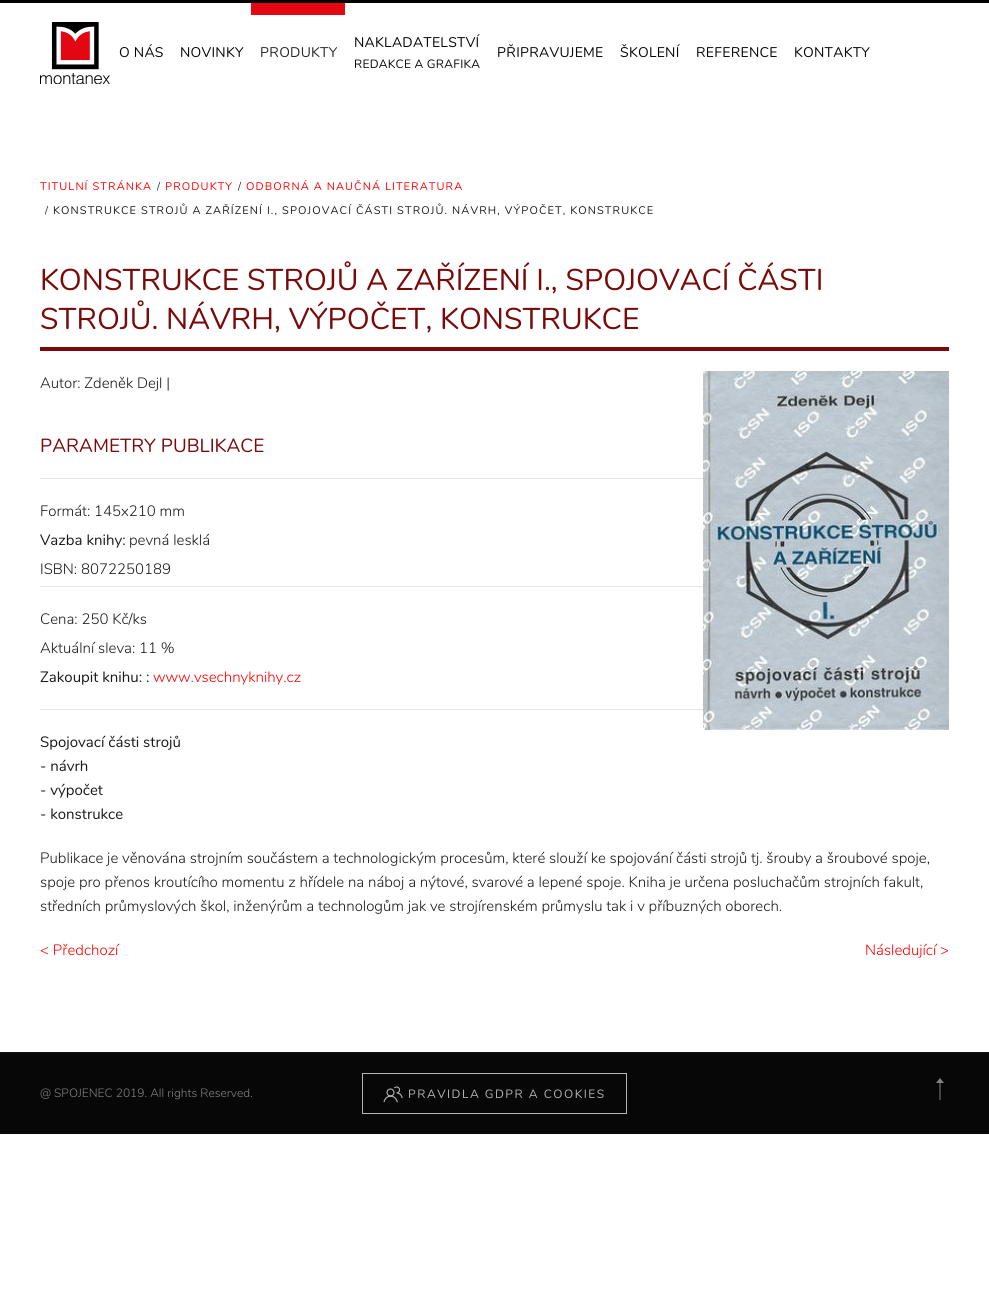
#include <cairo/cairo.h>
#include <math.h>
#include <stddef.h>


static void draw_spaced(cairo_t *cr, double x, double y, const char *s, double letter, double word) {
  cairo_move_to(cr, x, y);
  while (*s) {
    char ch[5] = {0};
    int n = 0;
    do ch[n++] = *s++; while ((*s & 0xC0) == 0x80);
    cairo_show_text(cr, ch);
    cairo_rel_move_to(cr, letter + word * (*ch == ' '), 0);
  }
}

static void draw_image(cairo_t *cr, const char *path, double x, double y, double w, double h) {
  cairo_surface_t *image = cairo_image_surface_create_from_png(path);
  cairo_save(cr);
  cairo_set_source_surface(cr, image, x, y);
  cairo_rectangle(cr, x, y, w, h);
  cairo_fill(cr);
  cairo_restore(cr);
  cairo_surface_destroy(image);
}

static void draw(cairo_t *cr) {
  cairo_set_source_rgb(cr, 1, 1, 1);
  cairo_paint(cr);
  cairo_set_source_rgb(cr, 0, 0, 0);
  cairo_rectangle(cr, 0, 0, 989, 3);
  cairo_fill(cr);
  draw_image(cr, "images/1.png", 40, 22, 70, 62);
  cairo_set_source_rgb(cr, 227 / 255.0, 6 / 255.0, 19 / 255.0);
  cairo_rectangle(cr, 251, 3, 94, 12);
  cairo_fill(cr);
  cairo_set_source_rgb(cr, 121 / 255.0, 10 / 255.0, 10 / 255.0);
  cairo_rectangle(cr, 40, 347, 909, 4);
  cairo_fill(cr);
  draw_image(cr, "images/2.png", 703, 371, 246, 359);
  cairo_set_source_rgb(cr, 229 / 255.0, 229 / 255.0, 229 / 255.0);
  cairo_rectangle(cr, 40, 478, 663, 1);
  cairo_fill(cr);
  cairo_rectangle(cr, 40, 586, 663, 1);
  cairo_fill(cr);
  cairo_rectangle(cr, 40, 709, 663, 1);
  cairo_fill(cr);
  cairo_set_source_rgb(cr, 19 / 255.0, 19 / 255.0, 19 / 255.0);
  cairo_rectangle(cr, 0, 1052, 989, 1);
  cairo_fill(cr);
  cairo_set_source_rgb(cr, 7 / 255.0, 7 / 255.0, 7 / 255.0);
  cairo_rectangle(cr, 0, 1053, 989, 81);
  cairo_fill(cr);
  cairo_rectangle(cr, 362.5, 1073.5, 264, 40);
  cairo_set_source_rgb(cr, 181 / 255.0, 181 / 255.0, 181 / 255.0);
  cairo_set_line_width(cr, 1);
  cairo_stroke(cr);
  draw_image(cr, "images/3.png", 383, 1086, 20, 17);
  cairo_set_source_rgb(cr, 131 / 255.0, 131 / 255.0, 131 / 255.0);
  cairo_new_path(cr);
  cairo_move_to(cr, 944, 1083);
  cairo_line_to(cr, 940, 1078);
  cairo_line_to(cr, 936, 1083);
  cairo_line_to(cr, 939.5, 1083);
  cairo_line_to(cr, 939.5, 1100);
  cairo_line_to(cr, 940.5, 1100);
  cairo_line_to(cr, 940.5, 1083);
  cairo_close_path(cr);
  cairo_fill(cr);
  cairo_select_font_face(cr, "Nunito", CAIRO_FONT_SLANT_NORMAL, CAIRO_FONT_WEIGHT_NORMAL);
  cairo_set_font_size(cr, 14);
  cairo_set_source_rgb(cr, 5 / 255.0, 5 / 255.0, 5 / 255.0);
  draw_spaced(cr, 119, 57, "O NÁS", 0.25, 0);
  draw_spaced(cr, 180, 57, "NOVINKY", 0.25, 0);
  cairo_set_source_rgb(cr, 38 / 255.0, 38 / 255.0, 38 / 255.0);
  draw_spaced(cr, 260, 57, "PRODUKTY", 0.25, 0);
  cairo_set_source_rgb(cr, 5 / 255.0, 5 / 255.0, 5 / 255.0);
  draw_spaced(cr, 354, 47, "NAKLADATELSTVÍ", 0.25, 0);
  cairo_set_font_size(cr, 12);
  draw_spaced(cr, 354, 68, "REDAKCE A GRAFIKA", 0.25, 0);
  cairo_set_font_size(cr, 14);
  draw_spaced(cr, 497, 57, "PŘIPRAVUJEME", 0.25, 0);
  draw_spaced(cr, 620, 57, "ŠKOLENÍ", 0.25, 0);
  draw_spaced(cr, 696, 57, "REFERENCE", 0.25, 0);
  draw_spaced(cr, 794, 57, "KONTAKTY", 0.25, 0);
  cairo_set_font_size(cr, 11);
  cairo_set_source_rgb(cr, 1, 0, 0);
  draw_spaced(cr, 40, 190, "TITULNÍ STRÁNKA", 1.1, 0);
  cairo_select_font_face(cr, "Nunito Light", CAIRO_FONT_SLANT_NORMAL, CAIRO_FONT_WEIGHT_NORMAL);
  cairo_set_source_rgb(cr, 5 / 255.0, 5 / 255.0, 5 / 255.0);
  cairo_move_to(cr, 157, 190);
  cairo_show_text(cr, "/");
  cairo_select_font_face(cr, "Nunito", CAIRO_FONT_SLANT_NORMAL, CAIRO_FONT_WEIGHT_NORMAL);
  cairo_set_source_rgb(cr, 1, 0, 0);
  draw_spaced(cr, 165, 190, "PRODUKTY", 1.1, 0);
  cairo_select_font_face(cr, "Nunito Light", CAIRO_FONT_SLANT_NORMAL, CAIRO_FONT_WEIGHT_NORMAL);
  cairo_set_source_rgb(cr, 5 / 255.0, 5 / 255.0, 5 / 255.0);
  cairo_move_to(cr, 238, 190);
  cairo_show_text(cr, "/");
  cairo_select_font_face(cr, "Nunito", CAIRO_FONT_SLANT_NORMAL, CAIRO_FONT_WEIGHT_NORMAL);
  cairo_set_source_rgb(cr, 1, 0, 0);
  draw_spaced(cr, 246, 190, "ODBORNÁ A NAUČNÁ LITERATURA", 1.1, 0);
  cairo_select_font_face(cr, "Nunito Light", CAIRO_FONT_SLANT_NORMAL, CAIRO_FONT_WEIGHT_NORMAL);
  cairo_set_source_rgb(cr, 5 / 255.0, 5 / 255.0, 5 / 255.0);
  cairo_move_to(cr, 45, 214);
  cairo_show_text(cr, "/");
  cairo_select_font_face(cr, "Nunito", CAIRO_FONT_SLANT_NORMAL, CAIRO_FONT_WEIGHT_NORMAL);
  cairo_set_source_rgb(cr, 26 / 255.0, 26 / 255.0, 26 / 255.0);
  draw_spaced(cr, 53, 214, "KONSTRUKCE STROJŮ A ZAŘÍZENÍ I., SPOJOVACÍ ČÁSTI STROJŮ. NÁVRH, VÝPOČET, KONSTRUKCE", 1.1, 0);
  cairo_set_font_size(cr, 30);
  cairo_set_source_rgb(cr, 121 / 255.0, 10 / 255.0, 10 / 255.0);
  cairo_move_to(cr, 40, 290);
  cairo_show_text(cr, "KONSTRUKCE STROJŮ A ZAŘÍZENÍ I., SPOJOVACÍ ČÁSTI");
  cairo_move_to(cr, 40, 329);
  cairo_show_text(cr, "STROJŮ. NÁVRH, VÝPOČET, KONSTRUKCE");
  cairo_select_font_face(cr, "Nunito Light", CAIRO_FONT_SLANT_NORMAL, CAIRO_FONT_WEIGHT_NORMAL);
  cairo_set_font_size(cr, 15);
  cairo_set_source_rgb(cr, 26 / 255.0, 26 / 255.0, 26 / 255.0);
  cairo_move_to(cr, 40, 388);
  cairo_show_text(cr, "Autor: Zdeněk Dejl |");
  cairo_select_font_face(cr, "Nunito", CAIRO_FONT_SLANT_NORMAL, CAIRO_FONT_WEIGHT_NORMAL);
  cairo_set_font_size(cr, 19);
  cairo_set_source_rgb(cr, 121 / 255.0, 10 / 255.0, 10 / 255.0);
  cairo_move_to(cr, 40, 452);
  cairo_show_text(cr, "PARAMETRY PUBLIKACE");
  cairo_select_font_face(cr, "Nunito Light", CAIRO_FONT_SLANT_NORMAL, CAIRO_FONT_WEIGHT_NORMAL);
  cairo_set_font_size(cr, 15);
  cairo_set_source_rgb(cr, 26 / 255.0, 26 / 255.0, 26 / 255.0);
  cairo_move_to(cr, 40, 516);
  cairo_show_text(cr, "Formát: 145x210 mm");
  cairo_select_font_face(cr, "Nunito", CAIRO_FONT_SLANT_NORMAL, CAIRO_FONT_WEIGHT_NORMAL);
  cairo_move_to(cr, 40, 545);
  cairo_show_text(cr, "Vazba knihy:");
  cairo_select_font_face(cr, "Nunito Light", CAIRO_FONT_SLANT_NORMAL, CAIRO_FONT_WEIGHT_NORMAL);
  cairo_move_to(cr, 129, 545);
  cairo_show_text(cr, "pevná lesklá");
  cairo_move_to(cr, 40, 574);
  cairo_show_text(cr, "ISBN: 8072250189");
  cairo_move_to(cr, 40, 624);
  cairo_show_text(cr, "Cena: 250 Kč/ks");
  cairo_move_to(cr, 40, 653);
  cairo_show_text(cr, "Aktuální sleva: 11 %");
  cairo_select_font_face(cr, "Nunito", CAIRO_FONT_SLANT_NORMAL, CAIRO_FONT_WEIGHT_NORMAL);
  cairo_move_to(cr, 40, 682);
  cairo_show_text(cr, "Zakoupit knihu: :");
  cairo_select_font_face(cr, "Nunito Light", CAIRO_FONT_SLANT_NORMAL, CAIRO_FONT_WEIGHT_NORMAL);
  cairo_set_source_rgb(cr, 1, 0, 0);
  cairo_move_to(cr, 153, 682);
  cairo_show_text(cr, "www.vsechnyknihy.cz");
  cairo_select_font_face(cr, "Nunito", CAIRO_FONT_SLANT_NORMAL, CAIRO_FONT_WEIGHT_NORMAL);
  cairo_set_source_rgb(cr, 26 / 255.0, 26 / 255.0, 26 / 255.0);
  cairo_move_to(cr, 40, 747);
  cairo_show_text(cr, "Spojovací části strojů");
  cairo_move_to(cr, 40, 771);
  cairo_show_text(cr, "- návrh");
  cairo_move_to(cr, 40, 795);
  cairo_show_text(cr, "- výpočet");
  cairo_move_to(cr, 40, 819);
  cairo_show_text(cr, "- konstrukce");
  cairo_select_font_face(cr, "Nunito Light", CAIRO_FONT_SLANT_NORMAL, CAIRO_FONT_WEIGHT_NORMAL);
  cairo_move_to(cr, 40, 863);
  cairo_show_text(cr, "Publikace je věnována strojním součástem a technologickým procesům, které slouží ke spojování části strojů tj. šrouby a šroubové spoje,");
  cairo_move_to(cr, 40, 887);
  cairo_show_text(cr, "spoje pro přenos kroutícího momentu z hřídele na náboj a nýtové, svarové a lepené spoje. Kniha je určena posluchačům strojních fakult,");
  cairo_move_to(cr, 40, 911);
  cairo_show_text(cr, "středních průmyslových škol, inženýrům a technologům jak ve strojírenském průmyslu tak i v příbuzných oborech.");
  cairo_set_source_rgb(cr, 1, 0, 0);
  cairo_move_to(cr, 40, 955);
  cairo_show_text(cr, "< Předchozí");
  cairo_move_to(cr, 865, 955);
  cairo_show_text(cr, "Následující >");
  cairo_set_font_size(cr, 12);
  cairo_set_source_rgb(cr, 131 / 255.0, 131 / 255.0, 131 / 255.0);
  cairo_move_to(cr, 40, 1097);
  cairo_show_text(cr, "@ SPOJENEC 2019. All rights Reserved.");
  cairo_select_font_face(cr, "Nunito", CAIRO_FONT_SLANT_NORMAL, CAIRO_FONT_WEIGHT_NORMAL);
  cairo_set_source_rgb(cr, 181 / 255.0, 181 / 255.0, 181 / 255.0);
  draw_spaced(cr, 408, 1098, "PRAVIDLA GDPR A COOKIES", 1.5, 0);
}

int main(void) {
  cairo_surface_t *surface = cairo_image_surface_create(CAIRO_FORMAT_RGB24, 989, 1297);
  cairo_t *cr = cairo_create(surface);
  cairo_font_options_t *options = cairo_font_options_create();
  cairo_font_options_set_hint_metrics(options, CAIRO_HINT_METRICS_OFF);
  cairo_font_options_set_hint_style(options, CAIRO_HINT_STYLE_NONE);
  cairo_set_font_options(cr, options);
  cairo_set_miter_limit(cr, 4);
  draw(cr);
  cairo_surface_write_to_png(surface, "out.png");
  cairo_font_options_destroy(options);
  cairo_destroy(cr);
  cairo_surface_destroy(surface);
  return 0;
}
